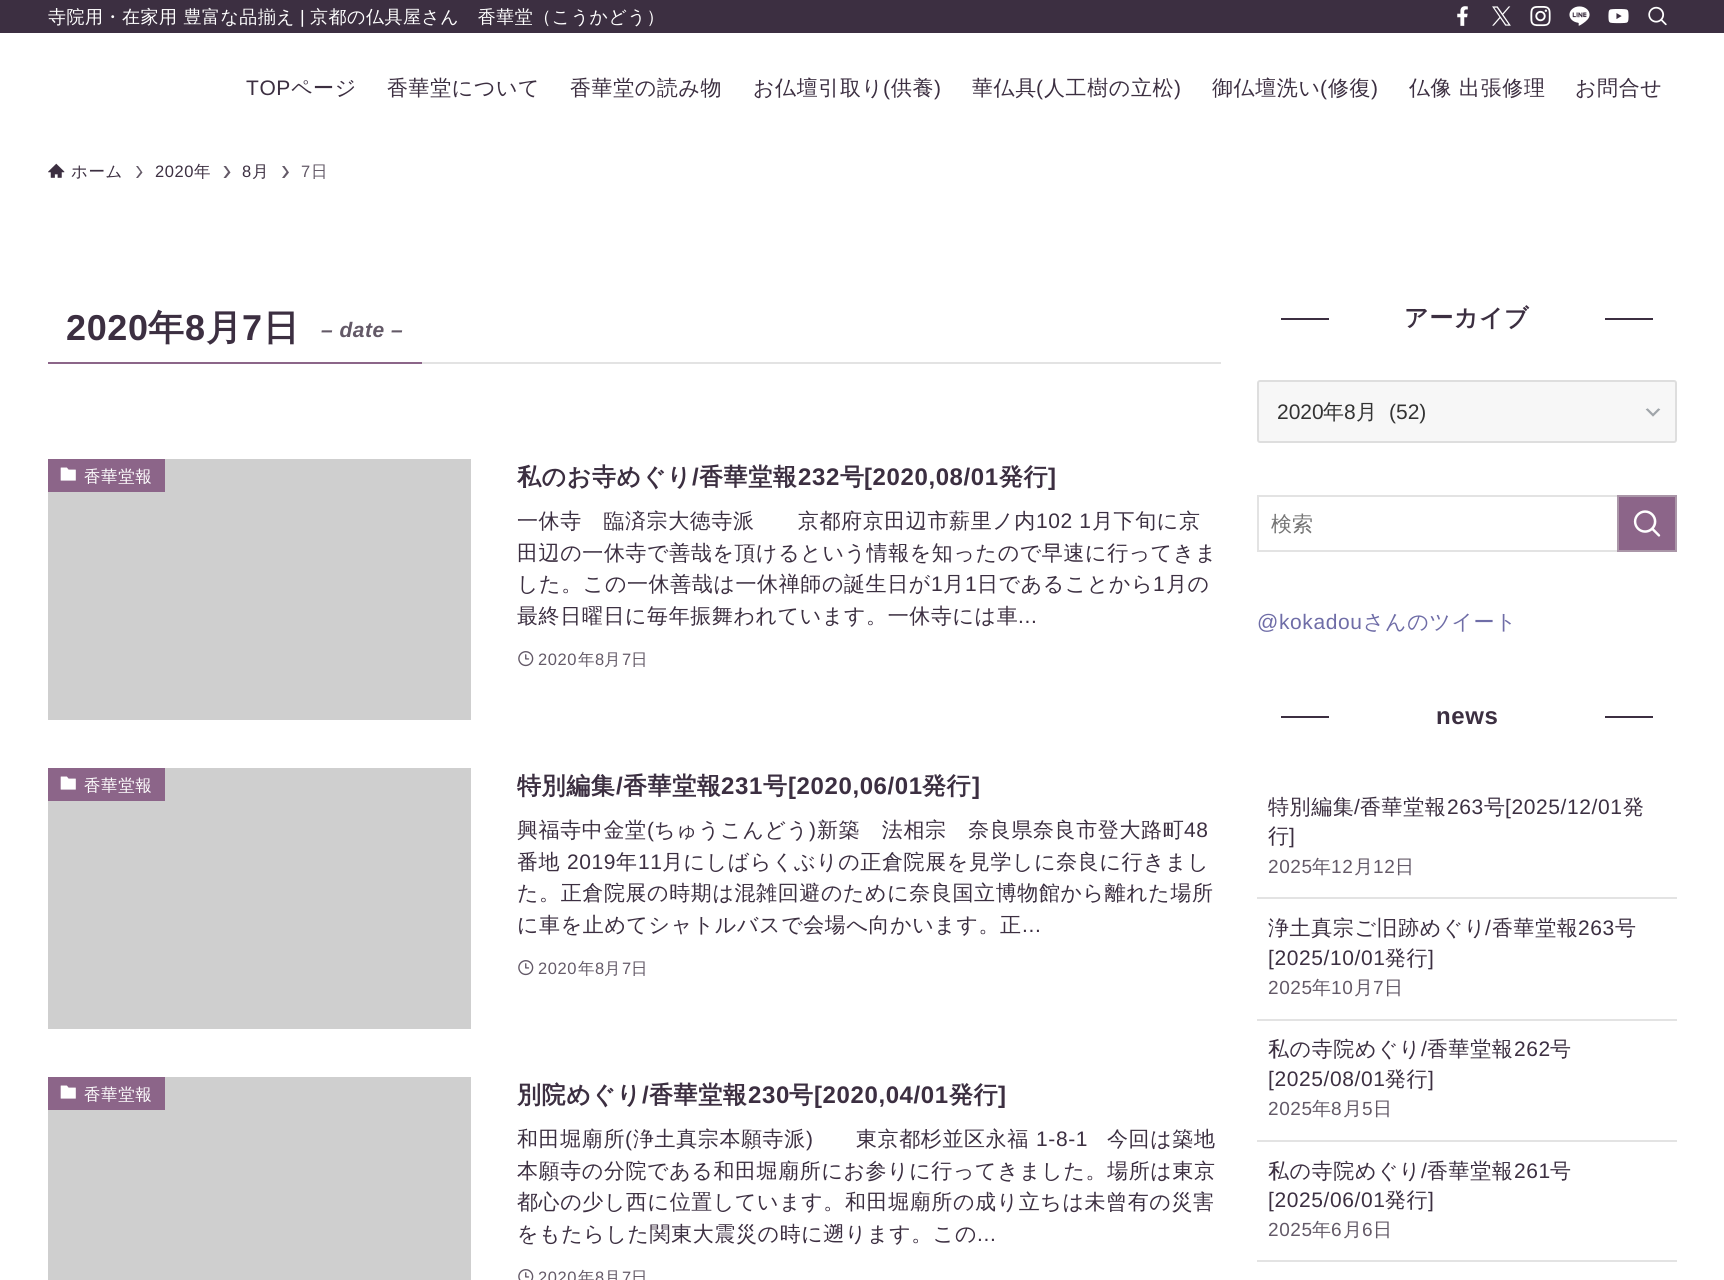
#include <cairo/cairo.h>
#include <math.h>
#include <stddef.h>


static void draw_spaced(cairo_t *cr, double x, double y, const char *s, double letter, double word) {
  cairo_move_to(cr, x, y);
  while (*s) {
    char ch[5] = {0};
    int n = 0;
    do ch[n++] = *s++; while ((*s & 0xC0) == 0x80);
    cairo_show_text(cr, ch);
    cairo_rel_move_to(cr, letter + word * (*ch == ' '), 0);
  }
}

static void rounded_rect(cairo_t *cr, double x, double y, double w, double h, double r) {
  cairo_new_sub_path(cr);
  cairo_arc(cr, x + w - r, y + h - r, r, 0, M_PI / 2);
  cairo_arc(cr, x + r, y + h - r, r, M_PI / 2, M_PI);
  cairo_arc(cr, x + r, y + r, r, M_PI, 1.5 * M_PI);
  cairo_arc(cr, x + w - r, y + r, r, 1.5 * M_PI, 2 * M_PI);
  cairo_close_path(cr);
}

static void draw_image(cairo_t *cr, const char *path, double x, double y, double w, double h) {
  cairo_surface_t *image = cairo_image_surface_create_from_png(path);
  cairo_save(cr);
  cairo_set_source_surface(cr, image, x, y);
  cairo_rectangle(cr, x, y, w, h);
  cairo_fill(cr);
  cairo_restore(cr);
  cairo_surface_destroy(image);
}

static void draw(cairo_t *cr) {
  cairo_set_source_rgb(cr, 1, 1, 1);
  cairo_paint(cr);
  cairo_set_source_rgb(cr, 60 / 255.0, 47 / 255.0, 65 / 255.0);
  cairo_rectangle(cr, 0, 0, 1724, 33);
  cairo_fill(cr);
  draw_image(cr, "images/1.png", 1457, 6, 11, 20);
  draw_image(cr, "images/2.png", 1492, 6, 19, 20);
  draw_image(cr, "images/3.png", 1530, 6, 21, 21);
  draw_image(cr, "images/4.png", 1569, 6, 21, 20);
  draw_image(cr, "images/5.png", 1608, 9, 21, 15);
  draw_image(cr, "images/6.png", 1648, 6, 19, 20);
  draw_image(cr, "images/7.png", 48, 163, 17, 15);
  cairo_set_source_rgb(cr, 99 / 255.0, 89 / 255.0, 103 / 255.0);
  cairo_new_path(cr);
  cairo_move_to(cr, 138, 166);
  cairo_line_to(cr, 136, 166);
  cairo_line_to(cr, 140.5, 172);
  cairo_line_to(cr, 136, 178);
  cairo_line_to(cr, 138, 178);
  cairo_line_to(cr, 142.5, 172.5);
  cairo_close_path(cr);
  cairo_fill(cr);
  cairo_new_path(cr);
  cairo_move_to(cr, 226, 166);
  cairo_line_to(cr, 223.5, 166);
  cairo_line_to(cr, 228, 172);
  cairo_line_to(cr, 223.5, 178);
  cairo_line_to(cr, 226, 178);
  cairo_line_to(cr, 230.5, 172.5);
  cairo_close_path(cr);
  cairo_fill(cr);
  cairo_new_path(cr);
  cairo_move_to(cr, 284.5, 166);
  cairo_line_to(cr, 282, 166);
  cairo_line_to(cr, 286.5, 172);
  cairo_line_to(cr, 282, 178);
  cairo_line_to(cr, 284.5, 178);
  cairo_line_to(cr, 289, 172.5);
  cairo_close_path(cr);
  cairo_fill(cr);
  cairo_set_source_rgb(cr, 227 / 255.0, 227 / 255.0, 227 / 255.0);
  cairo_rectangle(cr, 422, 362, 799, 2);
  cairo_fill(cr);
  cairo_set_source_rgb(cr, 140 / 255.0, 101 / 255.0, 137 / 255.0);
  cairo_rectangle(cr, 48, 362, 374, 2);
  cairo_fill(cr);
  cairo_set_source_rgb(cr, 207 / 255.0, 207 / 255.0, 207 / 255.0);
  cairo_rectangle(cr, 48, 459, 423, 261);
  cairo_fill(cr);
  cairo_set_source_rgb(cr, 140 / 255.0, 101 / 255.0, 137 / 255.0);
  cairo_rectangle(cr, 48, 459, 117, 33);
  cairo_fill(cr);
  draw_image(cr, "images/8.png", 60, 467, 16, 14);
  draw_image(cr, "images/9.png", 518, 651, 16, 16);
  cairo_set_source_rgb(cr, 207 / 255.0, 207 / 255.0, 207 / 255.0);
  cairo_rectangle(cr, 48, 768, 423, 261);
  cairo_fill(cr);
  cairo_set_source_rgb(cr, 140 / 255.0, 101 / 255.0, 137 / 255.0);
  cairo_rectangle(cr, 48, 768, 117, 33);
  cairo_fill(cr);
  draw_image(cr, "images/8.png", 60, 776, 16, 14);
  draw_image(cr, "images/9.png", 518, 960, 16, 16);
  cairo_set_source_rgb(cr, 207 / 255.0, 207 / 255.0, 207 / 255.0);
  cairo_rectangle(cr, 48, 1077, 423, 203);
  cairo_fill(cr);
  cairo_set_source_rgb(cr, 140 / 255.0, 101 / 255.0, 137 / 255.0);
  cairo_rectangle(cr, 48, 1077, 117, 33);
  cairo_fill(cr);
  draw_image(cr, "images/8.png", 60, 1085, 16, 14);
  draw_image(cr, "images/10.png", 518, 1269, 16, 11);
  cairo_set_source_rgb(cr, 60 / 255.0, 47 / 255.0, 65 / 255.0);
  cairo_rectangle(cr, 1281, 318, 48, 2);
  cairo_fill(cr);
  cairo_rectangle(cr, 1605, 318, 48, 2);
  cairo_fill(cr);
  cairo_set_source_rgb(cr, 247 / 255.0, 247 / 255.0, 247 / 255.0);
  rounded_rect(cr, 1257, 380, 420, 63, 3);
  cairo_fill(cr);
  draw_image(cr, "images/11.png", 1645, 408, 16, 9);
  rounded_rect(cr, 1258, 381, 418, 61, 2);
  cairo_set_source_rgba(cr, 199 / 255.0, 199 / 255.0, 199 / 255.0, 0.5);
  cairo_stroke(cr);
  cairo_rectangle(cr, 1258, 496, 418, 55);
  cairo_set_source_rgb(cr, 227 / 255.0, 227 / 255.0, 227 / 255.0);
  cairo_stroke(cr);
  cairo_set_source_rgb(cr, 140 / 255.0, 101 / 255.0, 137 / 255.0);
  cairo_rectangle(cr, 1618, 496, 58, 55);
  cairo_fill_preserve(cr);
  cairo_set_source_rgb(cr, 170 / 255.0, 150 / 255.0, 168 / 255.0);
  cairo_stroke(cr);
  draw_image(cr, "images/12.png", 1633, 510, 28, 27);
  cairo_set_source_rgb(cr, 60 / 255.0, 47 / 255.0, 65 / 255.0);
  cairo_rectangle(cr, 1281, 716, 48, 2);
  cairo_fill(cr);
  cairo_rectangle(cr, 1605, 716, 48, 2);
  cairo_fill(cr);
  cairo_set_source_rgb(cr, 227 / 255.0, 227 / 255.0, 227 / 255.0);
  cairo_rectangle(cr, 1257, 897, 420, 2);
  cairo_fill(cr);
  cairo_rectangle(cr, 1257, 1019, 420, 2);
  cairo_fill(cr);
  cairo_rectangle(cr, 1257, 1140, 420, 2);
  cairo_fill(cr);
  cairo_rectangle(cr, 1257, 1260, 420, 2);
  cairo_fill(cr);
  cairo_select_font_face(cr, "WenQuanYi Zen Hei Medium", CAIRO_FONT_SLANT_NORMAL, CAIRO_FONT_WEIGHT_NORMAL);
  cairo_set_font_size(cr, 18);
  cairo_set_source_rgb(cr, 1, 1, 1);
  draw_spaced(cr, 48, 23, "寺院用・在家用 豊富な品揃え", 0.5, 0);
  cairo_select_font_face(cr, "Liberation Sans", CAIRO_FONT_SLANT_NORMAL, CAIRO_FONT_WEIGHT_NORMAL);
  draw_spaced(cr, 300, 23, "|", 0.5, 0);
  cairo_select_font_face(cr, "WenQuanYi Zen Hei Medium", CAIRO_FONT_SLANT_NORMAL, CAIRO_FONT_WEIGHT_NORMAL);
  draw_spaced(cr, 310, 23, "京都の仏具屋さん　香華堂（こうかどう）", 0.5, 0);
  cairo_select_font_face(cr, "Liberation Sans", CAIRO_FONT_SLANT_NORMAL, CAIRO_FONT_WEIGHT_NORMAL);
  cairo_set_font_size(cr, 21);
  cairo_set_source_rgb(cr, 60 / 255.0, 47 / 255.0, 65 / 255.0);
  draw_spaced(cr, 246, 95, "TOP", 0.6, 0);
  cairo_select_font_face(cr, "WenQuanYi Zen Hei Medium", CAIRO_FONT_SLANT_NORMAL, CAIRO_FONT_WEIGHT_NORMAL);
  draw_spaced(cr, 291, 95, "ページ", 0.6, 0);
  draw_spaced(cr, 387, 95, "香華堂について", 0.6, 0);
  draw_spaced(cr, 570, 95, "香華堂の読み物", 0.6, 0);
  draw_spaced(cr, 753, 95, "お仏壇引取り", 0.6, 0);
  cairo_select_font_face(cr, "Liberation Sans", CAIRO_FONT_SLANT_NORMAL, CAIRO_FONT_WEIGHT_NORMAL);
  draw_spaced(cr, 883, 95, "(", 0.6, 0);
  cairo_select_font_face(cr, "WenQuanYi Zen Hei Medium", CAIRO_FONT_SLANT_NORMAL, CAIRO_FONT_WEIGHT_NORMAL);
  draw_spaced(cr, 891, 95, "供養", 0.6, 0);
  cairo_select_font_face(cr, "Liberation Sans", CAIRO_FONT_SLANT_NORMAL, CAIRO_FONT_WEIGHT_NORMAL);
  draw_spaced(cr, 934, 95, ")", 0.6, 0);
  cairo_select_font_face(cr, "WenQuanYi Zen Hei Medium", CAIRO_FONT_SLANT_NORMAL, CAIRO_FONT_WEIGHT_NORMAL);
  draw_spaced(cr, 972, 95, "華仏具", 0.6, 0);
  cairo_select_font_face(cr, "Liberation Sans", CAIRO_FONT_SLANT_NORMAL, CAIRO_FONT_WEIGHT_NORMAL);
  draw_spaced(cr, 1036, 95, "(", 0.6, 0);
  cairo_select_font_face(cr, "WenQuanYi Zen Hei Medium", CAIRO_FONT_SLANT_NORMAL, CAIRO_FONT_WEIGHT_NORMAL);
  draw_spaced(cr, 1044, 95, "人工樹の立松", 0.6, 0);
  cairo_select_font_face(cr, "Liberation Sans", CAIRO_FONT_SLANT_NORMAL, CAIRO_FONT_WEIGHT_NORMAL);
  draw_spaced(cr, 1174, 95, ")", 0.6, 0);
  cairo_select_font_face(cr, "WenQuanYi Zen Hei Medium", CAIRO_FONT_SLANT_NORMAL, CAIRO_FONT_WEIGHT_NORMAL);
  draw_spaced(cr, 1212, 95, "御仏壇洗い", 0.6, 0);
  cairo_select_font_face(cr, "Liberation Sans", CAIRO_FONT_SLANT_NORMAL, CAIRO_FONT_WEIGHT_NORMAL);
  draw_spaced(cr, 1320, 95, "(", 0.6, 0);
  cairo_select_font_face(cr, "WenQuanYi Zen Hei Medium", CAIRO_FONT_SLANT_NORMAL, CAIRO_FONT_WEIGHT_NORMAL);
  draw_spaced(cr, 1328, 95, "修復", 0.6, 0);
  cairo_select_font_face(cr, "Liberation Sans", CAIRO_FONT_SLANT_NORMAL, CAIRO_FONT_WEIGHT_NORMAL);
  draw_spaced(cr, 1371, 95, ")", 0.6, 0);
  cairo_select_font_face(cr, "WenQuanYi Zen Hei Medium", CAIRO_FONT_SLANT_NORMAL, CAIRO_FONT_WEIGHT_NORMAL);
  draw_spaced(cr, 1409, 95, "仏像 出張修理", 0.6, 0);
  draw_spaced(cr, 1575, 95, "お問合せ", 0.6, 0);
  cairo_set_font_size(cr, 16.5);
  draw_spaced(cr, 71, 177, "ホーム", 0.6, 0);
  cairo_select_font_face(cr, "Liberation Sans", CAIRO_FONT_SLANT_NORMAL, CAIRO_FONT_WEIGHT_NORMAL);
  draw_spaced(cr, 155, 177, "2020", 0.6, 0);
  cairo_select_font_face(cr, "WenQuanYi Zen Hei Medium", CAIRO_FONT_SLANT_NORMAL, CAIRO_FONT_WEIGHT_NORMAL);
  draw_spaced(cr, 194, 177, "年", 0.6, 0);
  cairo_select_font_face(cr, "Liberation Sans", CAIRO_FONT_SLANT_NORMAL, CAIRO_FONT_WEIGHT_NORMAL);
  draw_spaced(cr, 242, 177, "8", 0.6, 0);
  cairo_select_font_face(cr, "WenQuanYi Zen Hei Medium", CAIRO_FONT_SLANT_NORMAL, CAIRO_FONT_WEIGHT_NORMAL);
  draw_spaced(cr, 252, 177, "月", 0.6, 0);
  cairo_select_font_face(cr, "Liberation Sans", CAIRO_FONT_SLANT_NORMAL, CAIRO_FONT_WEIGHT_NORMAL);
  cairo_set_source_rgb(cr, 99 / 255.0, 89 / 255.0, 103 / 255.0);
  draw_spaced(cr, 301, 177, "7", 0.6, 0);
  cairo_select_font_face(cr, "WenQuanYi Zen Hei Medium", CAIRO_FONT_SLANT_NORMAL, CAIRO_FONT_WEIGHT_NORMAL);
  draw_spaced(cr, 311, 177, "日", 0.6, 0);
  cairo_select_font_face(cr, "Liberation Sans", CAIRO_FONT_SLANT_NORMAL, CAIRO_FONT_WEIGHT_BOLD);
  cairo_set_font_size(cr, 36);
  cairo_set_source_rgb(cr, 60 / 255.0, 47 / 255.0, 65 / 255.0);
  draw_spaced(cr, 66, 340, "2020", 0.6, 0);
  cairo_select_font_face(cr, "WenQuanYi Zen Hei", CAIRO_FONT_SLANT_NORMAL, CAIRO_FONT_WEIGHT_BOLD);
  draw_spaced(cr, 148, 340, "年", 0.6, 0);
  cairo_select_font_face(cr, "Liberation Sans", CAIRO_FONT_SLANT_NORMAL, CAIRO_FONT_WEIGHT_BOLD);
  draw_spaced(cr, 185, 340, "8", 0.6, 0);
  cairo_select_font_face(cr, "WenQuanYi Zen Hei", CAIRO_FONT_SLANT_NORMAL, CAIRO_FONT_WEIGHT_BOLD);
  draw_spaced(cr, 206, 340, "月", 0.6, 0);
  cairo_select_font_face(cr, "Liberation Sans", CAIRO_FONT_SLANT_NORMAL, CAIRO_FONT_WEIGHT_BOLD);
  draw_spaced(cr, 242, 340, "7", 0.6, 0);
  cairo_select_font_face(cr, "WenQuanYi Zen Hei", CAIRO_FONT_SLANT_NORMAL, CAIRO_FONT_WEIGHT_BOLD);
  draw_spaced(cr, 263, 340, "日", 0.6, 0);
  cairo_select_font_face(cr, "Liberation Sans", CAIRO_FONT_SLANT_ITALIC, CAIRO_FONT_WEIGHT_BOLD);
  cairo_set_font_size(cr, 21);
  cairo_set_source_rgb(cr, 99 / 255.0, 89 / 255.0, 103 / 255.0);
  draw_spaced(cr, 321, 337, "– date –", 0.5, 0);
  cairo_select_font_face(cr, "WenQuanYi Zen Hei Medium", CAIRO_FONT_SLANT_NORMAL, CAIRO_FONT_WEIGHT_NORMAL);
  cairo_set_font_size(cr, 16.5);
  cairo_set_source_rgb(cr, 1, 1, 1);
  draw_spaced(cr, 84, 482, "香華堂報", 0.6, 0);
  cairo_select_font_face(cr, "WenQuanYi Zen Hei", CAIRO_FONT_SLANT_NORMAL, CAIRO_FONT_WEIGHT_BOLD);
  cairo_set_font_size(cr, 24);
  cairo_set_source_rgb(cr, 60 / 255.0, 47 / 255.0, 65 / 255.0);
  draw_spaced(cr, 517, 485, "私のお寺めぐり", 0.6, 0);
  cairo_select_font_face(cr, "Liberation Sans", CAIRO_FONT_SLANT_NORMAL, CAIRO_FONT_WEIGHT_BOLD);
  draw_spaced(cr, 692, 485, "/", 0.6, 0);
  cairo_select_font_face(cr, "WenQuanYi Zen Hei", CAIRO_FONT_SLANT_NORMAL, CAIRO_FONT_WEIGHT_BOLD);
  draw_spaced(cr, 699, 485, "香華堂報", 0.6, 0);
  cairo_select_font_face(cr, "Liberation Sans", CAIRO_FONT_SLANT_NORMAL, CAIRO_FONT_WEIGHT_BOLD);
  draw_spaced(cr, 798, 485, "232", 0.6, 0);
  cairo_select_font_face(cr, "WenQuanYi Zen Hei", CAIRO_FONT_SLANT_NORMAL, CAIRO_FONT_WEIGHT_BOLD);
  draw_spaced(cr, 840, 485, "号", 0.6, 0);
  cairo_select_font_face(cr, "Liberation Sans", CAIRO_FONT_SLANT_NORMAL, CAIRO_FONT_WEIGHT_BOLD);
  draw_spaced(cr, 864, 485, "[2020,08/01", 0.6, 0);
  cairo_select_font_face(cr, "WenQuanYi Zen Hei", CAIRO_FONT_SLANT_NORMAL, CAIRO_FONT_WEIGHT_BOLD);
  draw_spaced(cr, 999, 485, "発行", 0.6, 0);
  cairo_select_font_face(cr, "Liberation Sans", CAIRO_FONT_SLANT_NORMAL, CAIRO_FONT_WEIGHT_BOLD);
  draw_spaced(cr, 1048, 485, "]", 0.6, 0);
  cairo_select_font_face(cr, "WenQuanYi Zen Hei Medium", CAIRO_FONT_SLANT_NORMAL, CAIRO_FONT_WEIGHT_NORMAL);
  cairo_set_font_size(cr, 21);
  draw_spaced(cr, 517, 528, "一休寺　臨済宗大徳寺派　　京都府京田辺市薪里ノ内", 0.6, 0);
  cairo_select_font_face(cr, "Liberation Sans", CAIRO_FONT_SLANT_NORMAL, CAIRO_FONT_WEIGHT_NORMAL);
  draw_spaced(cr, 1036, 528, "102 1", 0.6, 0);
  cairo_select_font_face(cr, "WenQuanYi Zen Hei Medium", CAIRO_FONT_SLANT_NORMAL, CAIRO_FONT_WEIGHT_NORMAL);
  draw_spaced(cr, 1092, 528, "月下旬に京", 0.6, 0);
  draw_spaced(cr, 517, 560, "田辺の一休寺で善哉を頂けるという情報を知ったので早速に行ってきま", 0.6, 0);
  draw_spaced(cr, 517, 591, "した。この一休善哉は一休禅師の誕生日が", 0.6, 0);
  cairo_select_font_face(cr, "Liberation Sans", CAIRO_FONT_SLANT_NORMAL, CAIRO_FONT_WEIGHT_NORMAL);
  draw_spaced(cr, 931, 591, "1", 0.6, 0);
  cairo_select_font_face(cr, "WenQuanYi Zen Hei Medium", CAIRO_FONT_SLANT_NORMAL, CAIRO_FONT_WEIGHT_NORMAL);
  draw_spaced(cr, 943, 591, "月", 0.6, 0);
  cairo_select_font_face(cr, "Liberation Sans", CAIRO_FONT_SLANT_NORMAL, CAIRO_FONT_WEIGHT_NORMAL);
  draw_spaced(cr, 965, 591, "1", 0.6, 0);
  cairo_select_font_face(cr, "WenQuanYi Zen Hei Medium", CAIRO_FONT_SLANT_NORMAL, CAIRO_FONT_WEIGHT_NORMAL);
  draw_spaced(cr, 977, 591, "日であることから", 0.6, 0);
  cairo_select_font_face(cr, "Liberation Sans", CAIRO_FONT_SLANT_NORMAL, CAIRO_FONT_WEIGHT_NORMAL);
  draw_spaced(cr, 1153, 591, "1", 0.6, 0);
  cairo_select_font_face(cr, "WenQuanYi Zen Hei Medium", CAIRO_FONT_SLANT_NORMAL, CAIRO_FONT_WEIGHT_NORMAL);
  draw_spaced(cr, 1166, 591, "月の", 0.6, 0);
  draw_spaced(cr, 517, 623, "最終日曜日に毎年振舞われています。一休寺には車", 0.6, 0);
  cairo_select_font_face(cr, "Liberation Sans", CAIRO_FONT_SLANT_NORMAL, CAIRO_FONT_WEIGHT_NORMAL);
  draw_spaced(cr, 1018, 623, "...", 0.6, 0);
  cairo_set_font_size(cr, 16.5);
  cairo_set_source_rgb(cr, 99 / 255.0, 89 / 255.0, 103 / 255.0);
  draw_spaced(cr, 538, 665, "2020", 0.6, 0);
  cairo_select_font_face(cr, "WenQuanYi Zen Hei Medium", CAIRO_FONT_SLANT_NORMAL, CAIRO_FONT_WEIGHT_NORMAL);
  draw_spaced(cr, 578, 665, "年", 0.6, 0);
  cairo_select_font_face(cr, "Liberation Sans", CAIRO_FONT_SLANT_NORMAL, CAIRO_FONT_WEIGHT_NORMAL);
  draw_spaced(cr, 595, 665, "8", 0.6, 0);
  cairo_select_font_face(cr, "WenQuanYi Zen Hei Medium", CAIRO_FONT_SLANT_NORMAL, CAIRO_FONT_WEIGHT_NORMAL);
  draw_spaced(cr, 604, 665, "月", 0.6, 0);
  cairo_select_font_face(cr, "Liberation Sans", CAIRO_FONT_SLANT_NORMAL, CAIRO_FONT_WEIGHT_NORMAL);
  draw_spaced(cr, 622, 665, "7", 0.6, 0);
  cairo_select_font_face(cr, "WenQuanYi Zen Hei Medium", CAIRO_FONT_SLANT_NORMAL, CAIRO_FONT_WEIGHT_NORMAL);
  draw_spaced(cr, 631, 665, "日", 0.6, 0);
  cairo_set_source_rgb(cr, 1, 1, 1);
  draw_spaced(cr, 84, 791, "香華堂報", 0.6, 0);
  cairo_select_font_face(cr, "WenQuanYi Zen Hei", CAIRO_FONT_SLANT_NORMAL, CAIRO_FONT_WEIGHT_BOLD);
  cairo_set_font_size(cr, 24);
  cairo_set_source_rgb(cr, 60 / 255.0, 47 / 255.0, 65 / 255.0);
  draw_spaced(cr, 517, 794, "特別編集", 0.6, 0);
  cairo_select_font_face(cr, "Liberation Sans", CAIRO_FONT_SLANT_NORMAL, CAIRO_FONT_WEIGHT_BOLD);
  draw_spaced(cr, 616, 794, "/", 0.6, 0);
  cairo_select_font_face(cr, "WenQuanYi Zen Hei", CAIRO_FONT_SLANT_NORMAL, CAIRO_FONT_WEIGHT_BOLD);
  draw_spaced(cr, 623, 794, "香華堂報", 0.6, 0);
  cairo_select_font_face(cr, "Liberation Sans", CAIRO_FONT_SLANT_NORMAL, CAIRO_FONT_WEIGHT_BOLD);
  draw_spaced(cr, 721, 794, "231", 0.6, 0);
  cairo_select_font_face(cr, "WenQuanYi Zen Hei", CAIRO_FONT_SLANT_NORMAL, CAIRO_FONT_WEIGHT_BOLD);
  draw_spaced(cr, 763, 794, "号", 0.6, 0);
  cairo_select_font_face(cr, "Liberation Sans", CAIRO_FONT_SLANT_NORMAL, CAIRO_FONT_WEIGHT_BOLD);
  draw_spaced(cr, 788, 794, "[2020,06/01", 0.6, 0);
  cairo_select_font_face(cr, "WenQuanYi Zen Hei", CAIRO_FONT_SLANT_NORMAL, CAIRO_FONT_WEIGHT_BOLD);
  draw_spaced(cr, 922, 794, "発行", 0.6, 0);
  cairo_select_font_face(cr, "Liberation Sans", CAIRO_FONT_SLANT_NORMAL, CAIRO_FONT_WEIGHT_BOLD);
  draw_spaced(cr, 972, 794, "]", 0.6, 0);
  cairo_select_font_face(cr, "WenQuanYi Zen Hei Medium", CAIRO_FONT_SLANT_NORMAL, CAIRO_FONT_WEIGHT_NORMAL);
  cairo_set_font_size(cr, 21);
  draw_spaced(cr, 517, 837, "興福寺中金堂", 0.6, 0);
  cairo_select_font_face(cr, "Liberation Sans", CAIRO_FONT_SLANT_NORMAL, CAIRO_FONT_WEIGHT_NORMAL);
  draw_spaced(cr, 647, 837, "(", 0.6, 0);
  cairo_select_font_face(cr, "WenQuanYi Zen Hei Medium", CAIRO_FONT_SLANT_NORMAL, CAIRO_FONT_WEIGHT_NORMAL);
  draw_spaced(cr, 654, 837, "ちゅうこんどう", 0.6, 0);
  cairo_select_font_face(cr, "Liberation Sans", CAIRO_FONT_SLANT_NORMAL, CAIRO_FONT_WEIGHT_NORMAL);
  draw_spaced(cr, 809, 837, ")", 0.6, 0);
  cairo_select_font_face(cr, "WenQuanYi Zen Hei Medium", CAIRO_FONT_SLANT_NORMAL, CAIRO_FONT_WEIGHT_NORMAL);
  draw_spaced(cr, 817, 837, "新築　法相宗　奈良県奈良市登大路町", 0.6, 0);
  cairo_select_font_face(cr, "Liberation Sans", CAIRO_FONT_SLANT_NORMAL, CAIRO_FONT_WEIGHT_NORMAL);
  draw_spaced(cr, 1184, 837, "48", 0.6, 0);
  cairo_select_font_face(cr, "WenQuanYi Zen Hei Medium", CAIRO_FONT_SLANT_NORMAL, CAIRO_FONT_WEIGHT_NORMAL);
  draw_spaced(cr, 517, 869, "番地", 0.6, 0);
  cairo_select_font_face(cr, "Liberation Sans", CAIRO_FONT_SLANT_NORMAL, CAIRO_FONT_WEIGHT_NORMAL);
  draw_spaced(cr, 567, 869, "2019", 0.6, 0);
  cairo_select_font_face(cr, "WenQuanYi Zen Hei Medium", CAIRO_FONT_SLANT_NORMAL, CAIRO_FONT_WEIGHT_NORMAL);
  draw_spaced(cr, 616, 869, "年", 0.6, 0);
  cairo_select_font_face(cr, "Liberation Sans", CAIRO_FONT_SLANT_NORMAL, CAIRO_FONT_WEIGHT_NORMAL);
  draw_spaced(cr, 638, 869, "11", 0.6, 0);
  cairo_select_font_face(cr, "WenQuanYi Zen Hei Medium", CAIRO_FONT_SLANT_NORMAL, CAIRO_FONT_WEIGHT_NORMAL);
  draw_spaced(cr, 662, 869, "月にしばらくぶりの正倉院展を見学しに奈良に行きまし", 0.6, 0);
  draw_spaced(cr, 517, 900, "た。正倉院展の時期は混雑回避のために奈良国立博物館から離れた場所", 0.6, 0);
  draw_spaced(cr, 517, 932, "に車を止めてシャトルバスで会場へ向かいます。正", 0.6, 0);
  cairo_select_font_face(cr, "Liberation Sans", CAIRO_FONT_SLANT_NORMAL, CAIRO_FONT_WEIGHT_NORMAL);
  draw_spaced(cr, 1022, 932, "...", 0.6, 0);
  cairo_set_font_size(cr, 16.5);
  cairo_set_source_rgb(cr, 99 / 255.0, 89 / 255.0, 103 / 255.0);
  draw_spaced(cr, 538, 974, "2020", 0.6, 0);
  cairo_select_font_face(cr, "WenQuanYi Zen Hei Medium", CAIRO_FONT_SLANT_NORMAL, CAIRO_FONT_WEIGHT_NORMAL);
  draw_spaced(cr, 578, 974, "年", 0.6, 0);
  cairo_select_font_face(cr, "Liberation Sans", CAIRO_FONT_SLANT_NORMAL, CAIRO_FONT_WEIGHT_NORMAL);
  draw_spaced(cr, 595, 974, "8", 0.6, 0);
  cairo_select_font_face(cr, "WenQuanYi Zen Hei Medium", CAIRO_FONT_SLANT_NORMAL, CAIRO_FONT_WEIGHT_NORMAL);
  draw_spaced(cr, 604, 974, "月", 0.6, 0);
  cairo_select_font_face(cr, "Liberation Sans", CAIRO_FONT_SLANT_NORMAL, CAIRO_FONT_WEIGHT_NORMAL);
  draw_spaced(cr, 622, 974, "7", 0.6, 0);
  cairo_select_font_face(cr, "WenQuanYi Zen Hei Medium", CAIRO_FONT_SLANT_NORMAL, CAIRO_FONT_WEIGHT_NORMAL);
  draw_spaced(cr, 631, 974, "日", 0.6, 0);
  cairo_set_source_rgb(cr, 1, 1, 1);
  draw_spaced(cr, 84, 1100, "香華堂報", 0.6, 0);
  cairo_select_font_face(cr, "WenQuanYi Zen Hei", CAIRO_FONT_SLANT_NORMAL, CAIRO_FONT_WEIGHT_BOLD);
  cairo_set_font_size(cr, 24);
  cairo_set_source_rgb(cr, 60 / 255.0, 47 / 255.0, 65 / 255.0);
  draw_spaced(cr, 517, 1103, "別院めぐり", 0.6, 0);
  cairo_select_font_face(cr, "Liberation Sans", CAIRO_FONT_SLANT_NORMAL, CAIRO_FONT_WEIGHT_BOLD);
  draw_spaced(cr, 642, 1103, "/", 0.6, 0);
  cairo_select_font_face(cr, "WenQuanYi Zen Hei", CAIRO_FONT_SLANT_NORMAL, CAIRO_FONT_WEIGHT_BOLD);
  draw_spaced(cr, 649, 1103, "香華堂報", 0.6, 0);
  cairo_select_font_face(cr, "Liberation Sans", CAIRO_FONT_SLANT_NORMAL, CAIRO_FONT_WEIGHT_BOLD);
  draw_spaced(cr, 748, 1103, "230", 0.6, 0);
  cairo_select_font_face(cr, "WenQuanYi Zen Hei", CAIRO_FONT_SLANT_NORMAL, CAIRO_FONT_WEIGHT_BOLD);
  draw_spaced(cr, 789, 1103, "号", 0.6, 0);
  cairo_select_font_face(cr, "Liberation Sans", CAIRO_FONT_SLANT_NORMAL, CAIRO_FONT_WEIGHT_BOLD);
  draw_spaced(cr, 814, 1103, "[2020,04/01", 0.6, 0);
  cairo_select_font_face(cr, "WenQuanYi Zen Hei", CAIRO_FONT_SLANT_NORMAL, CAIRO_FONT_WEIGHT_BOLD);
  draw_spaced(cr, 949, 1103, "発行", 0.6, 0);
  cairo_select_font_face(cr, "Liberation Sans", CAIRO_FONT_SLANT_NORMAL, CAIRO_FONT_WEIGHT_BOLD);
  draw_spaced(cr, 998, 1103, "]", 0.6, 0);
  cairo_select_font_face(cr, "WenQuanYi Zen Hei Medium", CAIRO_FONT_SLANT_NORMAL, CAIRO_FONT_WEIGHT_NORMAL);
  cairo_set_font_size(cr, 21);
  draw_spaced(cr, 517, 1146, "和田堀廟所", 0.6, 0);
  cairo_select_font_face(cr, "Liberation Sans", CAIRO_FONT_SLANT_NORMAL, CAIRO_FONT_WEIGHT_NORMAL);
  draw_spaced(cr, 625, 1146, "(", 0.6, 0);
  cairo_select_font_face(cr, "WenQuanYi Zen Hei Medium", CAIRO_FONT_SLANT_NORMAL, CAIRO_FONT_WEIGHT_NORMAL);
  draw_spaced(cr, 633, 1146, "浄土真宗本願寺派", 0.6, 0);
  cairo_select_font_face(cr, "Liberation Sans", CAIRO_FONT_SLANT_NORMAL, CAIRO_FONT_WEIGHT_NORMAL);
  draw_spaced(cr, 806, 1146, ")", 0.6, 0);
  cairo_select_font_face(cr, "WenQuanYi Zen Hei Medium", CAIRO_FONT_SLANT_NORMAL, CAIRO_FONT_WEIGHT_NORMAL);
  draw_spaced(cr, 856, 1146, "東京都杉並区永福", 0.6, 0);
  cairo_select_font_face(cr, "Liberation Sans", CAIRO_FONT_SLANT_NORMAL, CAIRO_FONT_WEIGHT_NORMAL);
  draw_spaced(cr, 1036, 1146, "1-8-1", 0.6, 0);
  cairo_select_font_face(cr, "WenQuanYi Zen Hei Medium", CAIRO_FONT_SLANT_NORMAL, CAIRO_FONT_WEIGHT_NORMAL);
  draw_spaced(cr, 1107, 1146, "今回は築地", 0.6, 0);
  draw_spaced(cr, 517, 1178, "本願寺の分院である和田堀廟所にお参りに行ってきました。場所は東京", 0.6, 0);
  draw_spaced(cr, 517, 1209, "都心の少し西に位置しています。和田堀廟所の成り立ちは未曾有の災害", 0.6, 0);
  draw_spaced(cr, 517, 1241, "をもたらした関東大震災の時に遡ります。この", 0.6, 0);
  cairo_select_font_face(cr, "Liberation Sans", CAIRO_FONT_SLANT_NORMAL, CAIRO_FONT_WEIGHT_NORMAL);
  draw_spaced(cr, 977, 1241, "...", 0.6, 0);
  cairo_set_font_size(cr, 16.5);
  cairo_set_source_rgb(cr, 99 / 255.0, 89 / 255.0, 103 / 255.0);
  draw_spaced(cr, 538, 1283, "2020", 0.6, 0);
  cairo_select_font_face(cr, "WenQuanYi Zen Hei Medium", CAIRO_FONT_SLANT_NORMAL, CAIRO_FONT_WEIGHT_NORMAL);
  draw_spaced(cr, 578, 1283, "年", 0.6, 0);
  cairo_select_font_face(cr, "Liberation Sans", CAIRO_FONT_SLANT_NORMAL, CAIRO_FONT_WEIGHT_NORMAL);
  draw_spaced(cr, 595, 1283, "8", 0.6, 0);
  cairo_select_font_face(cr, "WenQuanYi Zen Hei Medium", CAIRO_FONT_SLANT_NORMAL, CAIRO_FONT_WEIGHT_NORMAL);
  draw_spaced(cr, 604, 1283, "月", 0.6, 0);
  cairo_select_font_face(cr, "Liberation Sans", CAIRO_FONT_SLANT_NORMAL, CAIRO_FONT_WEIGHT_NORMAL);
  draw_spaced(cr, 622, 1283, "7", 0.6, 0);
  cairo_select_font_face(cr, "WenQuanYi Zen Hei Medium", CAIRO_FONT_SLANT_NORMAL, CAIRO_FONT_WEIGHT_NORMAL);
  draw_spaced(cr, 631, 1283, "日", 0.6, 0);
  cairo_select_font_face(cr, "WenQuanYi Zen Hei", CAIRO_FONT_SLANT_NORMAL, CAIRO_FONT_WEIGHT_BOLD);
  cairo_set_font_size(cr, 24);
  cairo_set_source_rgb(cr, 60 / 255.0, 47 / 255.0, 65 / 255.0);
  draw_spaced(cr, 1404, 326, "アーカイブ", 0.6, 0);
  cairo_select_font_face(cr, "Liberation Sans", CAIRO_FONT_SLANT_NORMAL, CAIRO_FONT_WEIGHT_NORMAL);
  cairo_set_font_size(cr, 21);
  cairo_set_source_rgb(cr, 51 / 255.0, 51 / 255.0, 51 / 255.0);
  cairo_move_to(cr, 1277, 419);
  cairo_show_text(cr, "2020");
  cairo_select_font_face(cr, "WenQuanYi Zen Hei Medium", CAIRO_FONT_SLANT_NORMAL, CAIRO_FONT_WEIGHT_NORMAL);
  cairo_move_to(cr, 1323, 419);
  cairo_show_text(cr, "年");
  cairo_select_font_face(cr, "Liberation Sans", CAIRO_FONT_SLANT_NORMAL, CAIRO_FONT_WEIGHT_NORMAL);
  cairo_move_to(cr, 1344, 419);
  cairo_show_text(cr, "8");
  cairo_select_font_face(cr, "WenQuanYi Zen Hei Medium", CAIRO_FONT_SLANT_NORMAL, CAIRO_FONT_WEIGHT_NORMAL);
  cairo_move_to(cr, 1356, 419);
  cairo_show_text(cr, "月");
  cairo_select_font_face(cr, "Liberation Sans", CAIRO_FONT_SLANT_NORMAL, CAIRO_FONT_WEIGHT_NORMAL);
  cairo_move_to(cr, 1389, 419);
  cairo_show_text(cr, "(52)");
  cairo_select_font_face(cr, "WenQuanYi Zen Hei Medium", CAIRO_FONT_SLANT_NORMAL, CAIRO_FONT_WEIGHT_NORMAL);
  cairo_set_source_rgb(cr, 117 / 255.0, 117 / 255.0, 117 / 255.0);
  cairo_move_to(cr, 1271, 531);
  cairo_show_text(cr, "検索");
  cairo_select_font_face(cr, "Liberation Sans", CAIRO_FONT_SLANT_NORMAL, CAIRO_FONT_WEIGHT_NORMAL);
  cairo_set_source_rgb(cr, 111 / 255.0, 109 / 255.0, 167 / 255.0);
  draw_spaced(cr, 1257, 629, "@kokadou", 0.6, 0);
  cairo_select_font_face(cr, "WenQuanYi Zen Hei Medium", CAIRO_FONT_SLANT_NORMAL, CAIRO_FONT_WEIGHT_NORMAL);
  draw_spaced(cr, 1363, 629, "さんのツイート", 0.6, 0);
  cairo_select_font_face(cr, "Liberation Sans", CAIRO_FONT_SLANT_NORMAL, CAIRO_FONT_WEIGHT_BOLD);
  cairo_set_font_size(cr, 24);
  cairo_set_source_rgb(cr, 60 / 255.0, 47 / 255.0, 65 / 255.0);
  draw_spaced(cr, 1436, 724, "news", 0.6, 0);
  cairo_select_font_face(cr, "WenQuanYi Zen Hei Medium", CAIRO_FONT_SLANT_NORMAL, CAIRO_FONT_WEIGHT_NORMAL);
  cairo_set_font_size(cr, 21);
  draw_spaced(cr, 1268, 814, "特別編集", 0.6, 0);
  cairo_select_font_face(cr, "Liberation Sans", CAIRO_FONT_SLANT_NORMAL, CAIRO_FONT_WEIGHT_NORMAL);
  draw_spaced(cr, 1354, 814, "/", 0.6, 0);
  cairo_select_font_face(cr, "WenQuanYi Zen Hei Medium", CAIRO_FONT_SLANT_NORMAL, CAIRO_FONT_WEIGHT_NORMAL);
  draw_spaced(cr, 1360, 814, "香華堂報", 0.6, 0);
  cairo_select_font_face(cr, "Liberation Sans", CAIRO_FONT_SLANT_NORMAL, CAIRO_FONT_WEIGHT_NORMAL);
  draw_spaced(cr, 1447, 814, "263", 0.6, 0);
  cairo_select_font_face(cr, "WenQuanYi Zen Hei Medium", CAIRO_FONT_SLANT_NORMAL, CAIRO_FONT_WEIGHT_NORMAL);
  draw_spaced(cr, 1484, 814, "号", 0.6, 0);
  cairo_select_font_face(cr, "Liberation Sans", CAIRO_FONT_SLANT_NORMAL, CAIRO_FONT_WEIGHT_NORMAL);
  draw_spaced(cr, 1505, 814, "[2025/12/01", 0.6, 0);
  cairo_select_font_face(cr, "WenQuanYi Zen Hei Medium", CAIRO_FONT_SLANT_NORMAL, CAIRO_FONT_WEIGHT_NORMAL);
  draw_spaced(cr, 1623, 814, "発", 0.6, 0);
  draw_spaced(cr, 1268, 843, "行", 0.6, 0);
  cairo_select_font_face(cr, "Liberation Sans", CAIRO_FONT_SLANT_NORMAL, CAIRO_FONT_WEIGHT_NORMAL);
  draw_spaced(cr, 1289, 843, "]", 0.6, 0);
  cairo_set_font_size(cr, 19);
  cairo_set_source_rgb(cr, 99 / 255.0, 89 / 255.0, 103 / 255.0);
  draw_spaced(cr, 1268, 873, "2025", 0.6, 0);
  cairo_select_font_face(cr, "WenQuanYi Zen Hei Medium", CAIRO_FONT_SLANT_NORMAL, CAIRO_FONT_WEIGHT_NORMAL);
  draw_spaced(cr, 1312, 873, "年", 0.6, 0);
  cairo_select_font_face(cr, "Liberation Sans", CAIRO_FONT_SLANT_NORMAL, CAIRO_FONT_WEIGHT_NORMAL);
  draw_spaced(cr, 1331, 873, "12", 0.6, 0);
  cairo_select_font_face(cr, "WenQuanYi Zen Hei Medium", CAIRO_FONT_SLANT_NORMAL, CAIRO_FONT_WEIGHT_NORMAL);
  draw_spaced(cr, 1354, 873, "月", 0.6, 0);
  cairo_select_font_face(cr, "Liberation Sans", CAIRO_FONT_SLANT_NORMAL, CAIRO_FONT_WEIGHT_NORMAL);
  draw_spaced(cr, 1373, 873, "12", 0.6, 0);
  cairo_select_font_face(cr, "WenQuanYi Zen Hei Medium", CAIRO_FONT_SLANT_NORMAL, CAIRO_FONT_WEIGHT_NORMAL);
  draw_spaced(cr, 1395, 873, "日", 0.6, 0);
  cairo_set_font_size(cr, 21);
  cairo_set_source_rgb(cr, 60 / 255.0, 47 / 255.0, 65 / 255.0);
  draw_spaced(cr, 1268, 935, "浄土真宗ご旧跡めぐり", 0.6, 0);
  cairo_select_font_face(cr, "Liberation Sans", CAIRO_FONT_SLANT_NORMAL, CAIRO_FONT_WEIGHT_NORMAL);
  draw_spaced(cr, 1485, 935, "/", 0.6, 0);
  cairo_select_font_face(cr, "WenQuanYi Zen Hei Medium", CAIRO_FONT_SLANT_NORMAL, CAIRO_FONT_WEIGHT_NORMAL);
  draw_spaced(cr, 1492, 935, "香華堂報", 0.6, 0);
  cairo_select_font_face(cr, "Liberation Sans", CAIRO_FONT_SLANT_NORMAL, CAIRO_FONT_WEIGHT_NORMAL);
  draw_spaced(cr, 1578, 935, "263", 0.6, 0);
  cairo_select_font_face(cr, "WenQuanYi Zen Hei Medium", CAIRO_FONT_SLANT_NORMAL, CAIRO_FONT_WEIGHT_NORMAL);
  draw_spaced(cr, 1615, 935, "号", 0.6, 0);
  cairo_select_font_face(cr, "Liberation Sans", CAIRO_FONT_SLANT_NORMAL, CAIRO_FONT_WEIGHT_NORMAL);
  draw_spaced(cr, 1268, 965, "[2025/10/01", 0.6, 0);
  cairo_select_font_face(cr, "WenQuanYi Zen Hei Medium", CAIRO_FONT_SLANT_NORMAL, CAIRO_FONT_WEIGHT_NORMAL);
  draw_spaced(cr, 1385, 965, "発行", 0.6, 0);
  cairo_select_font_face(cr, "Liberation Sans", CAIRO_FONT_SLANT_NORMAL, CAIRO_FONT_WEIGHT_NORMAL);
  draw_spaced(cr, 1428, 965, "]", 0.6, 0);
  cairo_set_font_size(cr, 19);
  cairo_set_source_rgb(cr, 99 / 255.0, 89 / 255.0, 103 / 255.0);
  draw_spaced(cr, 1268, 994, "2025", 0.6, 0);
  cairo_select_font_face(cr, "WenQuanYi Zen Hei Medium", CAIRO_FONT_SLANT_NORMAL, CAIRO_FONT_WEIGHT_NORMAL);
  draw_spaced(cr, 1312, 994, "年", 0.6, 0);
  cairo_select_font_face(cr, "Liberation Sans", CAIRO_FONT_SLANT_NORMAL, CAIRO_FONT_WEIGHT_NORMAL);
  draw_spaced(cr, 1331, 994, "10", 0.6, 0);
  cairo_select_font_face(cr, "WenQuanYi Zen Hei Medium", CAIRO_FONT_SLANT_NORMAL, CAIRO_FONT_WEIGHT_NORMAL);
  draw_spaced(cr, 1354, 994, "月", 0.6, 0);
  cairo_select_font_face(cr, "Liberation Sans", CAIRO_FONT_SLANT_NORMAL, CAIRO_FONT_WEIGHT_NORMAL);
  draw_spaced(cr, 1373, 994, "7", 0.6, 0);
  cairo_select_font_face(cr, "WenQuanYi Zen Hei Medium", CAIRO_FONT_SLANT_NORMAL, CAIRO_FONT_WEIGHT_NORMAL);
  draw_spaced(cr, 1384, 994, "日", 0.6, 0);
  cairo_set_font_size(cr, 21);
  cairo_set_source_rgb(cr, 60 / 255.0, 47 / 255.0, 65 / 255.0);
  draw_spaced(cr, 1268, 1056, "私の寺院めぐり", 0.6, 0);
  cairo_select_font_face(cr, "Liberation Sans", CAIRO_FONT_SLANT_NORMAL, CAIRO_FONT_WEIGHT_NORMAL);
  draw_spaced(cr, 1421, 1056, "/", 0.6, 0);
  cairo_select_font_face(cr, "WenQuanYi Zen Hei Medium", CAIRO_FONT_SLANT_NORMAL, CAIRO_FONT_WEIGHT_NORMAL);
  draw_spaced(cr, 1427, 1056, "香華堂報", 0.6, 0);
  cairo_select_font_face(cr, "Liberation Sans", CAIRO_FONT_SLANT_NORMAL, CAIRO_FONT_WEIGHT_NORMAL);
  draw_spaced(cr, 1514, 1056, "262", 0.6, 0);
  cairo_select_font_face(cr, "WenQuanYi Zen Hei Medium", CAIRO_FONT_SLANT_NORMAL, CAIRO_FONT_WEIGHT_NORMAL);
  draw_spaced(cr, 1550, 1056, "号", 0.6, 0);
  cairo_select_font_face(cr, "Liberation Sans", CAIRO_FONT_SLANT_NORMAL, CAIRO_FONT_WEIGHT_NORMAL);
  draw_spaced(cr, 1268, 1086, "[2025/08/01", 0.6, 0);
  cairo_select_font_face(cr, "WenQuanYi Zen Hei Medium", CAIRO_FONT_SLANT_NORMAL, CAIRO_FONT_WEIGHT_NORMAL);
  draw_spaced(cr, 1385, 1086, "発行", 0.6, 0);
  cairo_select_font_face(cr, "Liberation Sans", CAIRO_FONT_SLANT_NORMAL, CAIRO_FONT_WEIGHT_NORMAL);
  draw_spaced(cr, 1428, 1086, "]", 0.6, 0);
  cairo_set_font_size(cr, 19);
  cairo_set_source_rgb(cr, 99 / 255.0, 89 / 255.0, 103 / 255.0);
  draw_spaced(cr, 1268, 1115, "2025", 0.6, 0);
  cairo_select_font_face(cr, "WenQuanYi Zen Hei Medium", CAIRO_FONT_SLANT_NORMAL, CAIRO_FONT_WEIGHT_NORMAL);
  draw_spaced(cr, 1312, 1115, "年", 0.6, 0);
  cairo_select_font_face(cr, "Liberation Sans", CAIRO_FONT_SLANT_NORMAL, CAIRO_FONT_WEIGHT_NORMAL);
  draw_spaced(cr, 1331, 1115, "8", 0.6, 0);
  cairo_select_font_face(cr, "WenQuanYi Zen Hei Medium", CAIRO_FONT_SLANT_NORMAL, CAIRO_FONT_WEIGHT_NORMAL);
  draw_spaced(cr, 1343, 1115, "月", 0.6, 0);
  cairo_select_font_face(cr, "Liberation Sans", CAIRO_FONT_SLANT_NORMAL, CAIRO_FONT_WEIGHT_NORMAL);
  draw_spaced(cr, 1362, 1115, "5", 0.6, 0);
  cairo_select_font_face(cr, "WenQuanYi Zen Hei Medium", CAIRO_FONT_SLANT_NORMAL, CAIRO_FONT_WEIGHT_NORMAL);
  draw_spaced(cr, 1373, 1115, "日", 0.6, 0);
  cairo_set_font_size(cr, 21);
  cairo_set_source_rgb(cr, 60 / 255.0, 47 / 255.0, 65 / 255.0);
  draw_spaced(cr, 1268, 1178, "私の寺院めぐり", 0.6, 0);
  cairo_select_font_face(cr, "Liberation Sans", CAIRO_FONT_SLANT_NORMAL, CAIRO_FONT_WEIGHT_NORMAL);
  draw_spaced(cr, 1421, 1178, "/", 0.6, 0);
  cairo_select_font_face(cr, "WenQuanYi Zen Hei Medium", CAIRO_FONT_SLANT_NORMAL, CAIRO_FONT_WEIGHT_NORMAL);
  draw_spaced(cr, 1427, 1178, "香華堂報", 0.6, 0);
  cairo_select_font_face(cr, "Liberation Sans", CAIRO_FONT_SLANT_NORMAL, CAIRO_FONT_WEIGHT_NORMAL);
  draw_spaced(cr, 1514, 1178, "261", 0.6, 0);
  cairo_select_font_face(cr, "WenQuanYi Zen Hei Medium", CAIRO_FONT_SLANT_NORMAL, CAIRO_FONT_WEIGHT_NORMAL);
  draw_spaced(cr, 1550, 1178, "号", 0.6, 0);
  cairo_select_font_face(cr, "Liberation Sans", CAIRO_FONT_SLANT_NORMAL, CAIRO_FONT_WEIGHT_NORMAL);
  draw_spaced(cr, 1268, 1207, "[2025/06/01", 0.6, 0);
  cairo_select_font_face(cr, "WenQuanYi Zen Hei Medium", CAIRO_FONT_SLANT_NORMAL, CAIRO_FONT_WEIGHT_NORMAL);
  draw_spaced(cr, 1385, 1207, "発行", 0.6, 0);
  cairo_select_font_face(cr, "Liberation Sans", CAIRO_FONT_SLANT_NORMAL, CAIRO_FONT_WEIGHT_NORMAL);
  draw_spaced(cr, 1428, 1207, "]", 0.6, 0);
  cairo_set_font_size(cr, 19);
  cairo_set_source_rgb(cr, 99 / 255.0, 89 / 255.0, 103 / 255.0);
  draw_spaced(cr, 1268, 1236, "2025", 0.6, 0);
  cairo_select_font_face(cr, "WenQuanYi Zen Hei Medium", CAIRO_FONT_SLANT_NORMAL, CAIRO_FONT_WEIGHT_NORMAL);
  draw_spaced(cr, 1312, 1236, "年", 0.6, 0);
  cairo_select_font_face(cr, "Liberation Sans", CAIRO_FONT_SLANT_NORMAL, CAIRO_FONT_WEIGHT_NORMAL);
  draw_spaced(cr, 1331, 1236, "6", 0.6, 0);
  cairo_select_font_face(cr, "WenQuanYi Zen Hei Medium", CAIRO_FONT_SLANT_NORMAL, CAIRO_FONT_WEIGHT_NORMAL);
  draw_spaced(cr, 1343, 1236, "月", 0.6, 0);
  cairo_select_font_face(cr, "Liberation Sans", CAIRO_FONT_SLANT_NORMAL, CAIRO_FONT_WEIGHT_NORMAL);
  draw_spaced(cr, 1362, 1236, "6", 0.6, 0);
  cairo_select_font_face(cr, "WenQuanYi Zen Hei Medium", CAIRO_FONT_SLANT_NORMAL, CAIRO_FONT_WEIGHT_NORMAL);
  draw_spaced(cr, 1373, 1236, "日", 0.6, 0);
}

int main(void) {
  cairo_surface_t *surface = cairo_image_surface_create(CAIRO_FORMAT_RGB24, 1724, 1280);
  cairo_t *cr = cairo_create(surface);
  cairo_font_options_t *options = cairo_font_options_create();
  cairo_font_options_set_hint_metrics(options, CAIRO_HINT_METRICS_OFF);
  cairo_font_options_set_hint_style(options, CAIRO_HINT_STYLE_NONE);
  cairo_set_font_options(cr, options);
  cairo_set_miter_limit(cr, 4);
  draw(cr);
  cairo_surface_write_to_png(surface, "out.png");
  cairo_font_options_destroy(options);
  cairo_destroy(cr);
  cairo_surface_destroy(surface);
  return 0;
}
